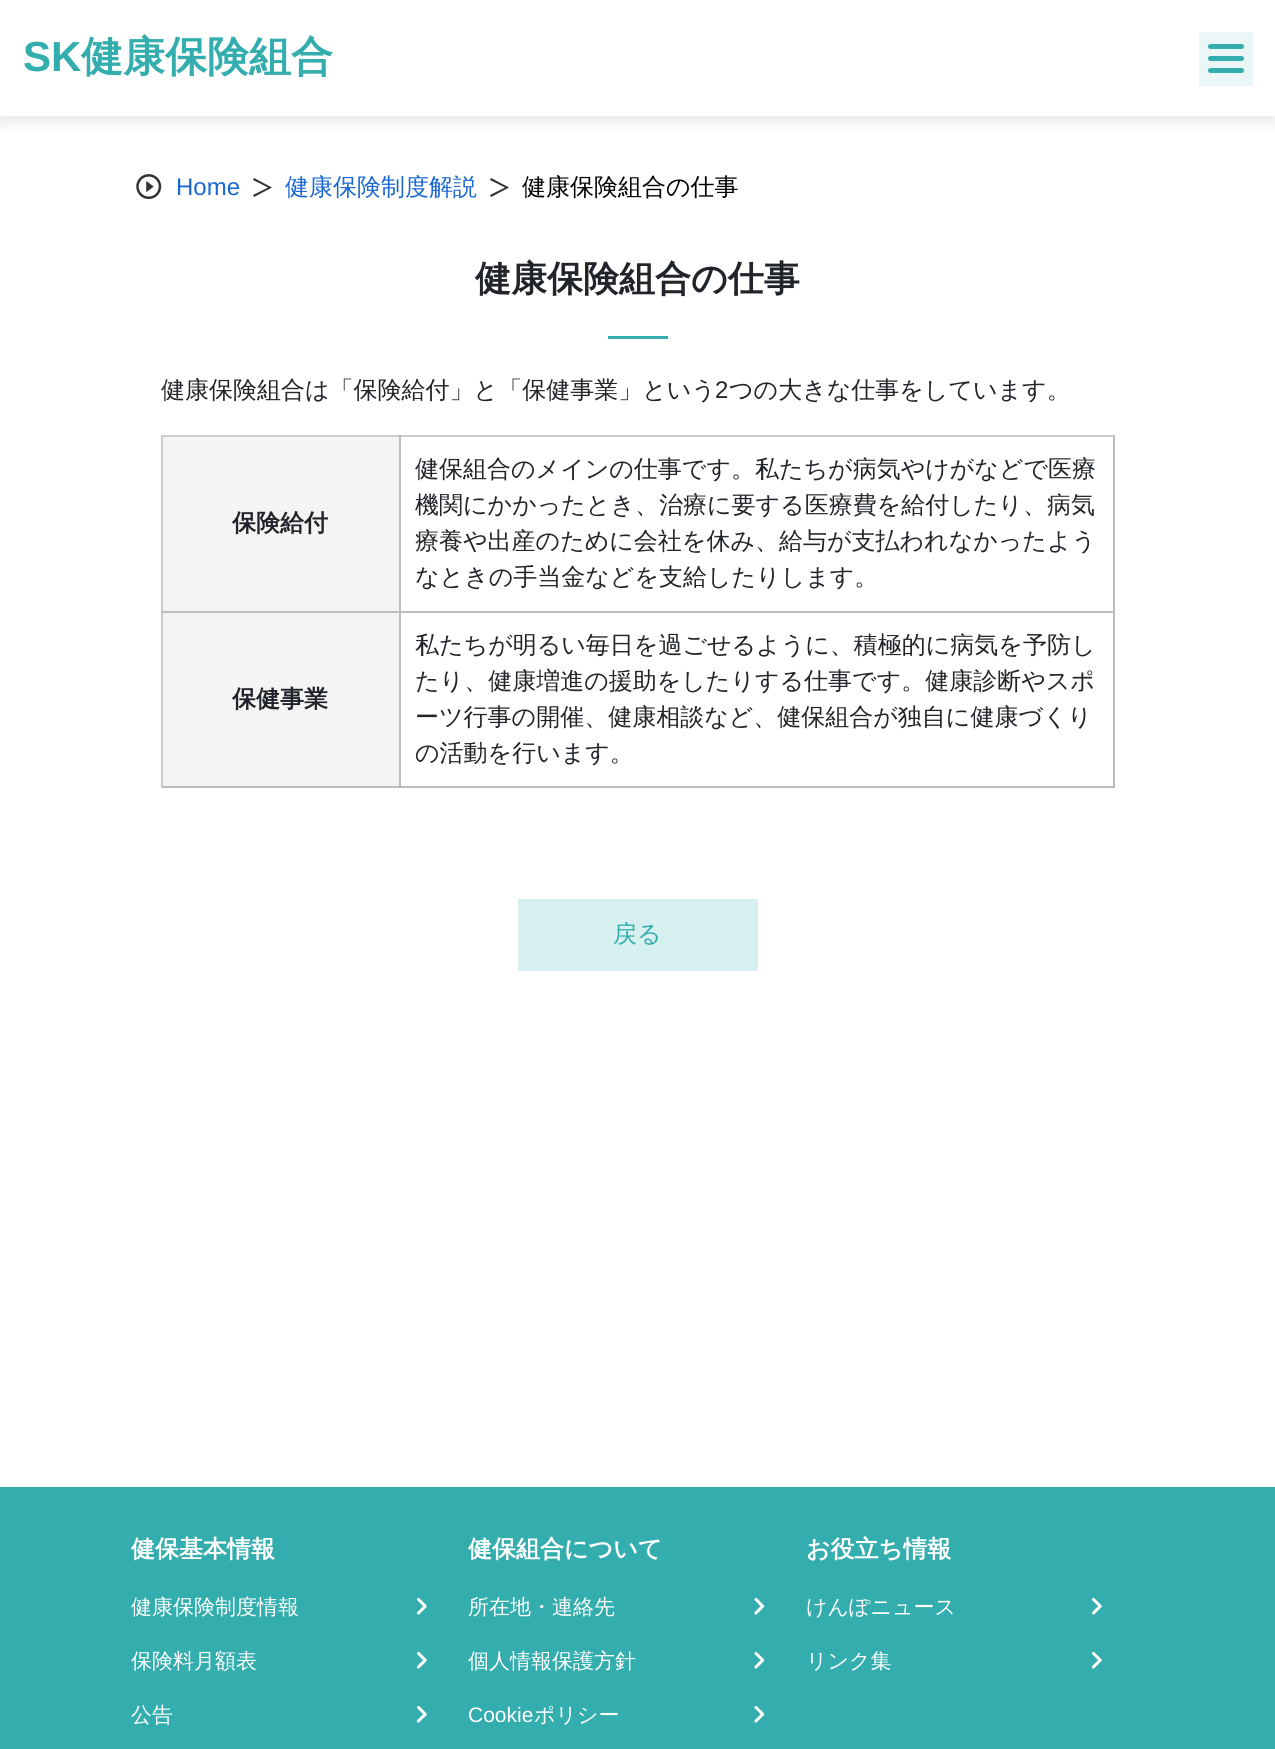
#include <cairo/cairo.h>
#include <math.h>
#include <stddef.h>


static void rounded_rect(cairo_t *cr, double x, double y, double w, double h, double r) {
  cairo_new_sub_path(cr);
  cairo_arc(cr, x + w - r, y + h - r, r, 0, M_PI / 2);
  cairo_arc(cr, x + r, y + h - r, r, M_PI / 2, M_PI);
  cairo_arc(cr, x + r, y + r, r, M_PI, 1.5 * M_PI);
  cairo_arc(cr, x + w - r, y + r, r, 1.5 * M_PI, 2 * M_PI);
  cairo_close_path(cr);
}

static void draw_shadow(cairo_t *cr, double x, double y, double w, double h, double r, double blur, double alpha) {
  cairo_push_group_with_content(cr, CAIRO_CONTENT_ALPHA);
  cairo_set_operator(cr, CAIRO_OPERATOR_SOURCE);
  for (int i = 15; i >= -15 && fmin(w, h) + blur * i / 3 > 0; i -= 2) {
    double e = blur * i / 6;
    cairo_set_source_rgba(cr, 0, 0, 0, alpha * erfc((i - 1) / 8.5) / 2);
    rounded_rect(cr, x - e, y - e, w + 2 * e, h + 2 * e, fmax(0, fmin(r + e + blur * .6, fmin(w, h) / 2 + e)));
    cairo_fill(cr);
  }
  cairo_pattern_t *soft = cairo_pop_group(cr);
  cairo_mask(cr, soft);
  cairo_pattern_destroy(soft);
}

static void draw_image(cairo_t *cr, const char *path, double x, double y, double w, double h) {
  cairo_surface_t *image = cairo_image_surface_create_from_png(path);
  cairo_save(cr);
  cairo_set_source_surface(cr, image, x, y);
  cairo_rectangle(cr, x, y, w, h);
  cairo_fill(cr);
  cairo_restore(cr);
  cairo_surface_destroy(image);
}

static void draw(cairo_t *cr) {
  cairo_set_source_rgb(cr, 1, 1, 1);
  cairo_paint(cr);
  cairo_save(cr);
  cairo_set_fill_rule(cr, CAIRO_FILL_RULE_EVEN_ODD);
  cairo_new_path(cr);
  cairo_move_to(cr, 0, 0);
  cairo_line_to(cr, 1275, 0);
  cairo_line_to(cr, 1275, 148);
  cairo_line_to(cr, 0, 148);
  cairo_close_path(cr);
  cairo_move_to(cr, 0, 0);
  cairo_line_to(cr, 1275, 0);
  cairo_line_to(cr, 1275, 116);
  cairo_line_to(cr, 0, 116);
  cairo_close_path(cr);
  cairo_clip(cr);
  cairo_set_source_rgb(cr, 0, 0, 0);
  draw_shadow(cr, 0, 5, 1275, 115, 0, 9, 0.12);
  cairo_restore(cr);
  cairo_set_source_rgb(cr, 235 / 255.0, 247 / 255.0, 247 / 255.0);
  cairo_rectangle(cr, 1199, 32, 54, 54);
  cairo_fill(cr);
  cairo_set_source_rgb(cr, 51 / 255.0, 173 / 255.0, 173 / 255.0);
  rounded_rect(cr, 1208, 44, 36, 5, 2.5);
  cairo_fill(cr);
  rounded_rect(cr, 1208, 56, 36, 5, 2.5);
  cairo_fill(cr);
  rounded_rect(cr, 1208, 68, 36, 5, 2.5);
  cairo_fill(cr);
  draw_image(cr, "images/1.png", 136, 174, 26, 26);
  cairo_set_source_rgb(cr, 51 / 255.0, 51 / 255.0, 51 / 255.0);
  cairo_new_path(cr);
  cairo_move_to(cr, 272, 187.5);
  cairo_line_to(cr, 254, 178);
  cairo_line_to(cr, 253, 180);
  cairo_line_to(cr, 268, 187.5);
  cairo_line_to(cr, 253, 195);
  cairo_line_to(cr, 254, 197);
  cairo_close_path(cr);
  cairo_fill(cr);
  cairo_new_path(cr);
  cairo_move_to(cr, 509, 187.5);
  cairo_line_to(cr, 491, 178);
  cairo_line_to(cr, 490, 180);
  cairo_line_to(cr, 505, 187.5);
  cairo_line_to(cr, 490, 195);
  cairo_line_to(cr, 491, 197);
  cairo_close_path(cr);
  cairo_fill(cr);
  cairo_set_source_rgb(cr, 51 / 255.0, 173 / 255.0, 173 / 255.0);
  cairo_rectangle(cr, 608, 336, 60, 3);
  cairo_fill(cr);
  cairo_set_source_rgb(cr, 204 / 255.0, 204 / 255.0, 204 / 255.0);
  cairo_rectangle(cr, 161, 435, 954, 2);
  cairo_fill(cr);
  cairo_set_source_rgb(cr, 244 / 255.0, 244 / 255.0, 244 / 255.0);
  cairo_rectangle(cr, 163, 437, 236, 174);
  cairo_fill(cr);
  cairo_set_source_rgb(cr, 189 / 255.0, 189 / 255.0, 189 / 255.0);
  cairo_rectangle(cr, 1113, 435, 2, 353);
  cairo_fill(cr);
  cairo_rectangle(cr, 399, 786, 716, 2);
  cairo_fill(cr);
  cairo_rectangle(cr, 399, 611, 2, 177);
  cairo_fill(cr);
  cairo_rectangle(cr, 399, 611, 716, 2);
  cairo_fill(cr);
  cairo_rectangle(cr, 399, 435, 2, 177);
  cairo_fill(cr);
  cairo_rectangle(cr, 161, 786, 240, 2);
  cairo_fill(cr);
  cairo_set_source_rgb(cr, 204 / 255.0, 204 / 255.0, 204 / 255.0);
  cairo_rectangle(cr, 161, 611, 2, 177);
  cairo_fill(cr);
  cairo_set_source_rgb(cr, 189 / 255.0, 189 / 255.0, 189 / 255.0);
  cairo_rectangle(cr, 161, 611, 240, 2);
  cairo_fill(cr);
  cairo_set_source_rgb(cr, 204 / 255.0, 204 / 255.0, 204 / 255.0);
  cairo_rectangle(cr, 161, 435, 2, 177);
  cairo_fill(cr);
  cairo_set_source_rgb(cr, 244 / 255.0, 244 / 255.0, 244 / 255.0);
  cairo_rectangle(cr, 163, 613, 236, 173);
  cairo_fill(cr);
  cairo_set_source_rgb(cr, 214 / 255.0, 239 / 255.0, 239 / 255.0);
  cairo_rectangle(cr, 518, 899, 240, 72);
  cairo_fill(cr);
  cairo_set_source_rgb(cr, 51 / 255.0, 173 / 255.0, 173 / 255.0);
  cairo_rectangle(cr, 0, 1487, 1275, 262);
  cairo_fill(cr);
  draw_image(cr, "images/2.png", 416, 1597, 11, 18);
  draw_image(cr, "images/2.png", 416, 1651, 11, 18);
  draw_image(cr, "images/2.png", 416, 1705, 11, 18);
  draw_image(cr, "images/3.png", 754, 1597, 11, 18);
  draw_image(cr, "images/3.png", 754, 1651, 11, 18);
  draw_image(cr, "images/3.png", 754, 1705, 11, 18);
  draw_image(cr, "images/2.png", 1091, 1597, 11, 18);
  draw_image(cr, "images/2.png", 1091, 1651, 11, 18);
  cairo_select_font_face(cr, "Liberation Sans", CAIRO_FONT_SLANT_NORMAL, CAIRO_FONT_WEIGHT_BOLD);
  cairo_set_font_size(cr, 42);
  cairo_move_to(cr, 23, 71);
  cairo_show_text(cr, "SK");
  cairo_select_font_face(cr, "WenQuanYi Zen Hei", CAIRO_FONT_SLANT_NORMAL, CAIRO_FONT_WEIGHT_BOLD);
  cairo_move_to(cr, 81, 71);
  cairo_show_text(cr, "健康保険組合");
  cairo_select_font_face(cr, "Liberation Sans", CAIRO_FONT_SLANT_NORMAL, CAIRO_FONT_WEIGHT_NORMAL);
  cairo_set_font_size(cr, 24);
  cairo_set_source_rgb(cr, 25 / 255.0, 103 / 255.0, 210 / 255.0);
  cairo_move_to(cr, 176, 195);
  cairo_show_text(cr, "Home");
  cairo_select_font_face(cr, "WenQuanYi Zen Hei Medium", CAIRO_FONT_SLANT_NORMAL, CAIRO_FONT_WEIGHT_NORMAL);
  cairo_move_to(cr, 285, 195);
  cairo_show_text(cr, "健康保険制度解説");
  cairo_set_source_rgb(cr, 0, 0, 0);
  cairo_move_to(cr, 522, 195);
  cairo_show_text(cr, "健康保険組合の仕事");
  cairo_select_font_face(cr, "WenQuanYi Zen Hei", CAIRO_FONT_SLANT_NORMAL, CAIRO_FONT_WEIGHT_BOLD);
  cairo_set_font_size(cr, 36);
  cairo_set_source_rgb(cr, 33 / 255.0, 37 / 255.0, 41 / 255.0);
  cairo_move_to(cr, 475, 291);
  cairo_show_text(cr, "健康保険組合の仕事");
  cairo_select_font_face(cr, "WenQuanYi Zen Hei Medium", CAIRO_FONT_SLANT_NORMAL, CAIRO_FONT_WEIGHT_NORMAL);
  cairo_set_font_size(cr, 24);
  cairo_move_to(cr, 161, 398);
  cairo_show_text(cr, "健康保険組合は「保険給付」と「保健事業」という");
  cairo_select_font_face(cr, "Liberation Sans", CAIRO_FONT_SLANT_NORMAL, CAIRO_FONT_WEIGHT_NORMAL);
  cairo_move_to(cr, 715, 398);
  cairo_show_text(cr, "2");
  cairo_select_font_face(cr, "WenQuanYi Zen Hei Medium", CAIRO_FONT_SLANT_NORMAL, CAIRO_FONT_WEIGHT_NORMAL);
  cairo_move_to(cr, 729, 398);
  cairo_show_text(cr, "つの大きな仕事をしています。");
  cairo_select_font_face(cr, "WenQuanYi Zen Hei", CAIRO_FONT_SLANT_NORMAL, CAIRO_FONT_WEIGHT_BOLD);
  cairo_move_to(cr, 232, 531);
  cairo_show_text(cr, "保険給付");
  cairo_select_font_face(cr, "WenQuanYi Zen Hei Medium", CAIRO_FONT_SLANT_NORMAL, CAIRO_FONT_WEIGHT_NORMAL);
  cairo_move_to(cr, 415, 477);
  cairo_show_text(cr, "健保組合のメインの仕事です。私たちが病気やけがなどで医療");
  cairo_move_to(cr, 415, 513);
  cairo_show_text(cr, "機関にかかったとき、治療に要する医療費を給付したり、病気");
  cairo_move_to(cr, 415, 549);
  cairo_show_text(cr, "療養や出産のために会社を休み、給与が支払われなかったよう");
  cairo_move_to(cr, 415, 585);
  cairo_show_text(cr, "なときの手当金などを支給したりします。");
  cairo_select_font_face(cr, "WenQuanYi Zen Hei", CAIRO_FONT_SLANT_NORMAL, CAIRO_FONT_WEIGHT_BOLD);
  cairo_move_to(cr, 232, 707);
  cairo_show_text(cr, "保健事業");
  cairo_select_font_face(cr, "WenQuanYi Zen Hei Medium", CAIRO_FONT_SLANT_NORMAL, CAIRO_FONT_WEIGHT_NORMAL);
  cairo_move_to(cr, 415, 653);
  cairo_show_text(cr, "私たちが明るい毎日を過ごせるように、積極的に病気を予防し");
  cairo_move_to(cr, 415, 689);
  cairo_show_text(cr, "たり、健康増進の援助をしたりする仕事です。健康診断やスポ");
  cairo_move_to(cr, 415, 725);
  cairo_show_text(cr, "ーツ行事の開催、健康相談など、健保組合が独自に健康づくり");
  cairo_move_to(cr, 415, 761);
  cairo_show_text(cr, "の活動を行います。");
  cairo_set_source_rgb(cr, 51 / 255.0, 173 / 255.0, 173 / 255.0);
  cairo_move_to(cr, 613, 942);
  cairo_show_text(cr, "戻る");
  cairo_select_font_face(cr, "WenQuanYi Zen Hei", CAIRO_FONT_SLANT_NORMAL, CAIRO_FONT_WEIGHT_BOLD);
  cairo_set_source_rgb(cr, 1, 1, 1);
  cairo_move_to(cr, 131, 1557);
  cairo_show_text(cr, "健保基本情報");
  cairo_select_font_face(cr, "WenQuanYi Zen Hei Medium", CAIRO_FONT_SLANT_NORMAL, CAIRO_FONT_WEIGHT_NORMAL);
  cairo_set_font_size(cr, 21);
  cairo_move_to(cr, 131, 1614);
  cairo_show_text(cr, "健康保険制度情報");
  cairo_move_to(cr, 131, 1668);
  cairo_show_text(cr, "保険料月額表");
  cairo_move_to(cr, 131, 1722);
  cairo_show_text(cr, "公告");
  cairo_select_font_face(cr, "WenQuanYi Zen Hei", CAIRO_FONT_SLANT_NORMAL, CAIRO_FONT_WEIGHT_BOLD);
  cairo_set_font_size(cr, 24);
  cairo_move_to(cr, 468, 1557);
  cairo_show_text(cr, "健保組合について");
  cairo_select_font_face(cr, "WenQuanYi Zen Hei Medium", CAIRO_FONT_SLANT_NORMAL, CAIRO_FONT_WEIGHT_NORMAL);
  cairo_set_font_size(cr, 21);
  cairo_move_to(cr, 468, 1614);
  cairo_show_text(cr, "所在地・連絡先");
  cairo_move_to(cr, 468, 1668);
  cairo_show_text(cr, "個人情報保護方針");
  cairo_select_font_face(cr, "Liberation Sans", CAIRO_FONT_SLANT_NORMAL, CAIRO_FONT_WEIGHT_NORMAL);
  cairo_move_to(cr, 468, 1722);
  cairo_show_text(cr, "Cookie");
  cairo_select_font_face(cr, "WenQuanYi Zen Hei Medium", CAIRO_FONT_SLANT_NORMAL, CAIRO_FONT_WEIGHT_NORMAL);
  cairo_move_to(cr, 534, 1722);
  cairo_show_text(cr, "ポリシー");
  cairo_select_font_face(cr, "WenQuanYi Zen Hei", CAIRO_FONT_SLANT_NORMAL, CAIRO_FONT_WEIGHT_BOLD);
  cairo_set_font_size(cr, 24);
  cairo_move_to(cr, 806, 1557);
  cairo_show_text(cr, "お役立ち情報");
  cairo_select_font_face(cr, "WenQuanYi Zen Hei Medium", CAIRO_FONT_SLANT_NORMAL, CAIRO_FONT_WEIGHT_NORMAL);
  cairo_set_font_size(cr, 21);
  cairo_move_to(cr, 806, 1614);
  cairo_show_text(cr, "けんぽニュース");
  cairo_move_to(cr, 806, 1668);
  cairo_show_text(cr, "リンク集");
}

int main(void) {
  cairo_surface_t *surface = cairo_image_surface_create(CAIRO_FORMAT_RGB24, 1275, 1749);
  cairo_t *cr = cairo_create(surface);
  cairo_font_options_t *options = cairo_font_options_create();
  cairo_font_options_set_hint_metrics(options, CAIRO_HINT_METRICS_OFF);
  cairo_font_options_set_hint_style(options, CAIRO_HINT_STYLE_NONE);
  cairo_set_font_options(cr, options);
  cairo_set_miter_limit(cr, 4);
  draw(cr);
  cairo_surface_write_to_png(surface, "out.png");
  cairo_font_options_destroy(options);
  cairo_destroy(cr);
  cairo_surface_destroy(surface);
  return 0;
}
